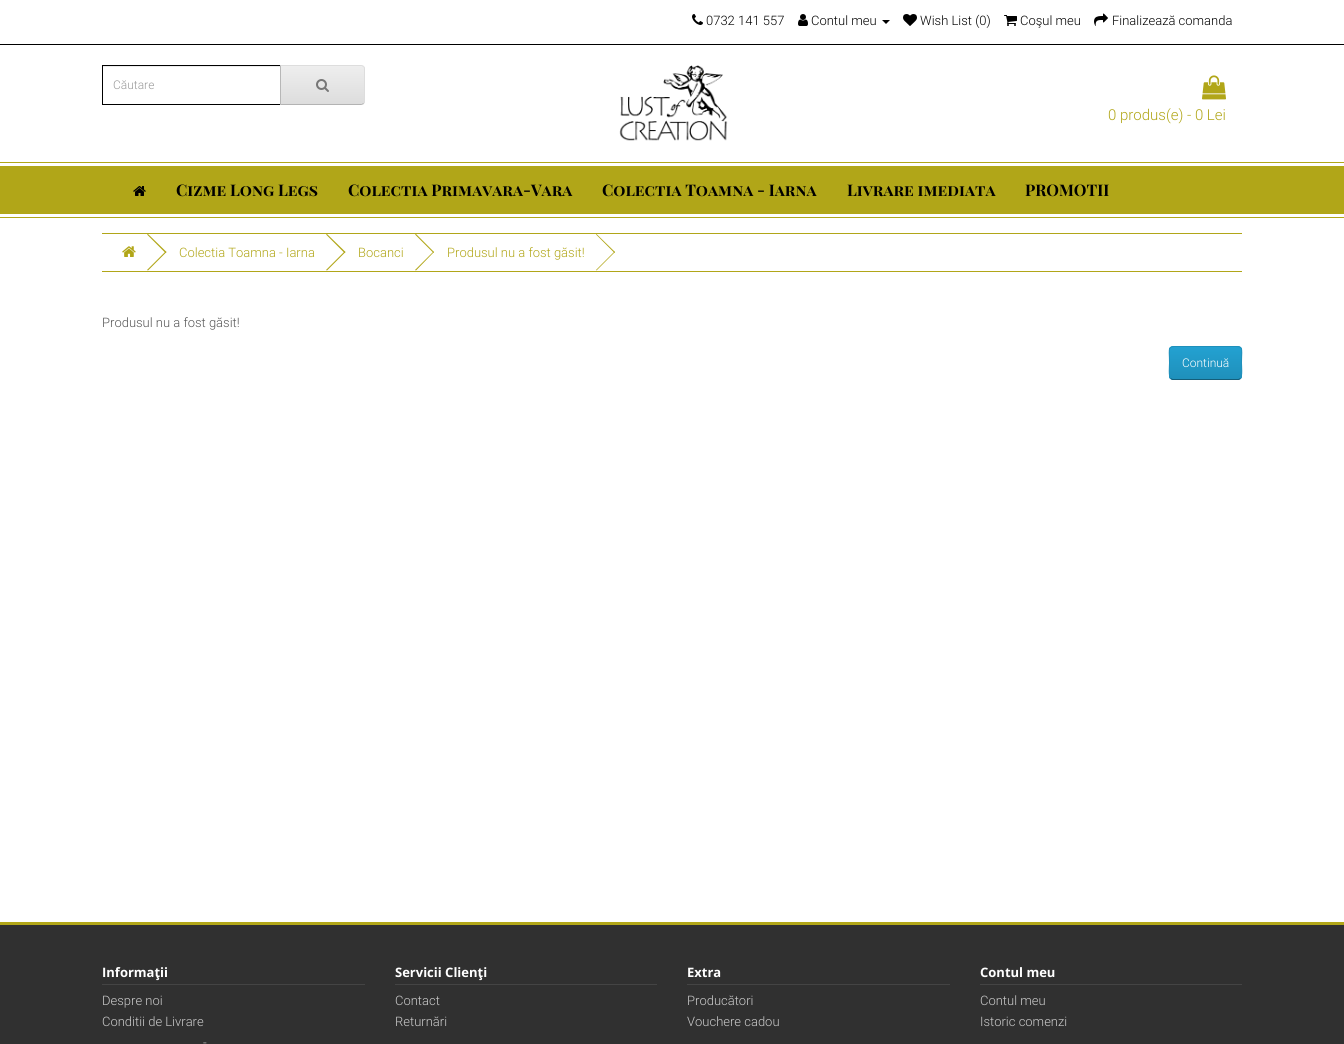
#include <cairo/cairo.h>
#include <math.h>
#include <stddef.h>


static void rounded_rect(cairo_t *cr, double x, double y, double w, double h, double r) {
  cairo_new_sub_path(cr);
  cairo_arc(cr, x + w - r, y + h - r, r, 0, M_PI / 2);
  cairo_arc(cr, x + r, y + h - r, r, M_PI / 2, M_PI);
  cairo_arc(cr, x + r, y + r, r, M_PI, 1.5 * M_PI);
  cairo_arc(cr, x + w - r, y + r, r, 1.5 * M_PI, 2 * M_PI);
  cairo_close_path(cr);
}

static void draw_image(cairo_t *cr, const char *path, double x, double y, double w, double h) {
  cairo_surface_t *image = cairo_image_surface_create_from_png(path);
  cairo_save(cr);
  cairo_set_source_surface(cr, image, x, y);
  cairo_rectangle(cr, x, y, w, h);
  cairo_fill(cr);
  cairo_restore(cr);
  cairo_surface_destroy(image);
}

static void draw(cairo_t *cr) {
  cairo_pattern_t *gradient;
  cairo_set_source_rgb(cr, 1, 1, 1);
  cairo_paint(cr);
  cairo_set_source_rgb(cr, 0, 0, 0);
  cairo_rectangle(cr, 0, 44, 1344, 1);
  cairo_fill(cr);
  draw_image(cr, "images/1.png", 692, 14, 11, 11);
  draw_image(cr, "images/2.png", 798, 14, 10, 12);
  cairo_new_path(cr);
  cairo_move_to(cr, 882, 20);
  cairo_line_to(cr, 890, 20);
  cairo_line_to(cr, 886, 24);
  cairo_close_path(cr);
  cairo_fill(cr);
  draw_image(cr, "images/3.png", 903, 14, 14, 12);
  draw_image(cr, "images/4.png", 1004, 15, 13, 11);
  draw_image(cr, "images/5.png", 1094, 13, 14, 13);
  cairo_set_source_rgb(cr, 236 / 255.0, 236 / 255.0, 236 / 255.0);
  cairo_rectangle(cr, 103, 66, 177, 1);
  cairo_fill(cr);
  cairo_rectangle(cr, 102.5, 65.5, 178, 39);
  cairo_set_source_rgb(cr, 0, 0, 0);
  cairo_set_line_width(cr, 1);
  cairo_stroke(cr);
  cairo_set_source_rgb(cr, 231 / 255.0, 231 / 255.0, 231 / 255.0);
  cairo_new_path(cr);
  cairo_move_to(cr, 280, 65);
  cairo_line_to(cr, 361, 65);
  cairo_curve_to(cr, 363, 65, 365, 67, 365, 69);
  cairo_line_to(cr, 365, 101);
  cairo_curve_to(cr, 365, 103, 363, 105, 361, 105);
  cairo_line_to(cr, 280, 105);
  cairo_close_path(cr);
  cairo_fill(cr);
  cairo_save(cr);
  cairo_new_path(cr);
  cairo_move_to(cr, 280, 65);
  cairo_line_to(cr, 361, 65);
  cairo_curve_to(cr, 363, 65, 365, 67, 365, 69);
  cairo_line_to(cr, 365, 101);
  cairo_curve_to(cr, 365, 103, 363, 105, 361, 105);
  cairo_line_to(cr, 280, 105);
  cairo_close_path(cr);
  cairo_clip(cr);
  gradient = cairo_pattern_create_linear(323, 66, 323, 104);
  cairo_pattern_add_color_stop_rgba(gradient, 0, 238 / 255.0, 238 / 255.0, 238 / 255.0, 1);
  cairo_pattern_add_color_stop_rgba(gradient, 1, 221 / 255.0, 221 / 255.0, 221 / 255.0, 1);
  cairo_set_source(cr, gradient);
  cairo_pattern_destroy(gradient);
  cairo_rectangle(cr, 281, 66, 84, 38);
  cairo_fill(cr);
  cairo_restore(cr);
  cairo_set_source_rgb(cr, 221 / 255.0, 221 / 255.0, 221 / 255.0);
  cairo_new_path(cr);
  cairo_move_to(cr, 280, 65);
  cairo_line_to(cr, 281, 66);
  cairo_line_to(cr, 362, 66);
  cairo_line_to(cr, 363, 67);
  cairo_line_to(cr, 364, 66);
  cairo_line_to(cr, 361, 65);
  cairo_close_path(cr);
  cairo_fill(cr);
  cairo_new_path(cr);
  cairo_move_to(cr, 365, 101);
  cairo_line_to(cr, 365, 69);
  cairo_curve_to(cr, 365, 68, 364.5, 67, 364, 66);
  cairo_line_to(cr, 363, 67);
  cairo_curve_to(cr, 364, 67, 364, 68, 364, 69);
  cairo_line_to(cr, 364, 101);
  cairo_curve_to(cr, 364, 102, 364, 103, 363, 103);
  cairo_line_to(cr, 364, 104);
  cairo_curve_to(cr, 364.5, 103, 365, 102, 365, 101);
  cairo_close_path(cr);
  cairo_fill(cr);
  cairo_set_source_rgb(cr, 179 / 255.0, 179 / 255.0, 179 / 255.0);
  cairo_new_path(cr);
  cairo_move_to(cr, 361, 105);
  cairo_line_to(cr, 364, 104);
  cairo_line_to(cr, 363, 103);
  cairo_line_to(cr, 362, 104);
  cairo_line_to(cr, 281, 104);
  cairo_line_to(cr, 280, 105);
  cairo_close_path(cr);
  cairo_fill(cr);
  cairo_set_source_rgb(cr, 183 / 255.0, 183 / 255.0, 183 / 255.0);
  cairo_new_path(cr);
  cairo_move_to(cr, 280, 65);
  cairo_line_to(cr, 280, 105);
  cairo_line_to(cr, 281, 104);
  cairo_line_to(cr, 281, 66);
  cairo_close_path(cr);
  cairo_fill(cr);
  draw_image(cr, "images/6.png", 316, 79, 13, 13);
  draw_image(cr, "images/7.png", 619, 65, 109, 76);
  draw_image(cr, "images/8.png", 1202, 75, 24, 25);
  cairo_set_source_rgb(cr, 177 / 255.0, 166 / 255.0, 24 / 255.0);
  cairo_rectangle(cr, 0, 162, 1344, 1);
  cairo_fill(cr);
  cairo_rectangle(cr, 0, 217, 1344, 1);
  cairo_fill(cr);
  cairo_rectangle(cr, 0, 166, 1344, 48);
  cairo_fill(cr);
  draw_image(cr, "images/9.png", 133, 186, 13, 10);
  cairo_rectangle(cr, 102, 233, 1140, 1);
  cairo_fill(cr);
  cairo_rectangle(cr, 102, 271, 1140, 1);
  cairo_fill(cr);
  draw_image(cr, "images/10.png", 122, 246, 14, 11);
  cairo_new_path(cr);
  cairo_move_to(cr, 147, 234.5);
  cairo_line_to(cr, 148, 234);
  cairo_line_to(cr, 166.5, 252);
  cairo_line_to(cr, 165.5, 253);
  cairo_close_path(cr);
  cairo_fill(cr);
  cairo_new_path(cr);
  cairo_move_to(cr, 147, 270);
  cairo_line_to(cr, 165.5, 251.5);
  cairo_line_to(cr, 166.5, 252);
  cairo_line_to(cr, 148, 270.5);
  cairo_close_path(cr);
  cairo_fill(cr);
  cairo_new_path(cr);
  cairo_move_to(cr, 326, 234.5);
  cairo_line_to(cr, 327, 234);
  cairo_line_to(cr, 345.5, 252);
  cairo_line_to(cr, 344.5, 253);
  cairo_close_path(cr);
  cairo_fill(cr);
  cairo_new_path(cr);
  cairo_move_to(cr, 326, 270);
  cairo_line_to(cr, 344.5, 251.5);
  cairo_line_to(cr, 345.5, 252);
  cairo_line_to(cr, 327, 270.5);
  cairo_close_path(cr);
  cairo_fill(cr);
  cairo_new_path(cr);
  cairo_move_to(cr, 415, 234.5);
  cairo_line_to(cr, 416, 234);
  cairo_line_to(cr, 434, 252);
  cairo_line_to(cr, 433.5, 253);
  cairo_close_path(cr);
  cairo_fill(cr);
  cairo_new_path(cr);
  cairo_move_to(cr, 415, 270);
  cairo_line_to(cr, 433.5, 251.5);
  cairo_line_to(cr, 434, 252);
  cairo_line_to(cr, 416, 270.5);
  cairo_close_path(cr);
  cairo_fill(cr);
  cairo_new_path(cr);
  cairo_move_to(cr, 596, 234.5);
  cairo_line_to(cr, 596.5, 234);
  cairo_line_to(cr, 615, 252);
  cairo_line_to(cr, 614.5, 253);
  cairo_close_path(cr);
  cairo_fill(cr);
  cairo_new_path(cr);
  cairo_move_to(cr, 596, 270);
  cairo_line_to(cr, 614.5, 251.5);
  cairo_line_to(cr, 615, 252);
  cairo_line_to(cr, 596.5, 270.5);
  cairo_close_path(cr);
  cairo_fill(cr);
  cairo_set_source_rgb(cr, 34 / 255.0, 154 / 255.0, 200 / 255.0);
  rounded_rect(cr, 1169, 346, 73, 34, 4);
  cairo_fill(cr);
  cairo_save(cr);
  rounded_rect(cr, 1169, 346, 73, 34, 4);
  cairo_clip(cr);
  gradient = cairo_pattern_create_linear(1206, 347, 1206, 379);
  cairo_pattern_add_color_stop_rgba(gradient, 0, 35 / 255.0, 161 / 255.0, 209 / 255.0, 1);
  cairo_pattern_add_color_stop_rgba(gradient, 1, 31 / 255.0, 144 / 255.0, 187 / 255.0, 1);
  cairo_set_source(cr, gradient);
  cairo_pattern_destroy(gradient);
  cairo_rectangle(cr, 1169, 347, 73, 32);
  cairo_fill(cr);
  cairo_restore(cr);
  cairo_new_path(cr);
  cairo_move_to(cr, 1240.5, 378.5);
  cairo_line_to(cr, 1238.5, 379.5);
  cairo_line_to(cr, 1172.5, 379.5);
  cairo_line_to(cr, 1170.5, 378.5);
  cairo_set_source_rgb(cr, 20 / 255.0, 94 / 255.0, 122 / 255.0);
  cairo_stroke(cr);
  cairo_new_path(cr);
  cairo_move_to(cr, 1170.5, 378.5);
  cairo_curve_to(cr, 1168.5, 376, 1169.5, 366, 1169.5, 363);
  cairo_curve_to(cr, 1169.5, 345, 1166, 346.5, 1184, 346.5);
  cairo_line_to(cr, 1227, 346.5);
  cairo_curve_to(cr, 1245, 346.5, 1241.5, 345, 1241.5, 363);
  cairo_curve_to(cr, 1241.5, 366, 1242.5, 376, 1240.5, 378.5);
  cairo_set_source_rgb(cr, 31 / 255.0, 144 / 255.0, 187 / 255.0);
  cairo_stroke(cr);
  cairo_set_source_rgb(cr, 48 / 255.0, 48 / 255.0, 48 / 255.0);
  cairo_rectangle(cr, 0, 925, 1344, 119);
  cairo_fill(cr);
  cairo_set_source_rgb(cr, 177 / 255.0, 166 / 255.0, 24 / 255.0);
  cairo_rectangle(cr, 0, 922, 1344, 3);
  cairo_fill(cr);
  cairo_set_source_rgb(cr, 68 / 255.0, 68 / 255.0, 68 / 255.0);
  cairo_rectangle(cr, 102, 984, 263, 1);
  cairo_fill(cr);
  cairo_rectangle(cr, 395, 984, 262, 1);
  cairo_fill(cr);
  cairo_rectangle(cr, 687, 984, 263, 1);
  cairo_fill(cr);
  cairo_rectangle(cr, 980, 984, 262, 1);
  cairo_fill(cr);
  cairo_select_font_face(cr, "Roboto Light", CAIRO_FONT_SLANT_NORMAL, CAIRO_FONT_WEIGHT_NORMAL);
  cairo_set_font_size(cr, 13);
  cairo_set_source_rgb(cr, 0, 0, 0);
  cairo_move_to(cr, 706, 25);
  cairo_show_text(cr, "0732 141 557");
  cairo_move_to(cr, 811, 25);
  cairo_show_text(cr, "Contul meu");
  cairo_move_to(cr, 920, 25);
  cairo_show_text(cr, "Wish List (0)");
  cairo_move_to(cr, 1020, 25);
  cairo_show_text(cr, "Coşul meu");
  cairo_move_to(cr, 1112, 25);
  cairo_show_text(cr, "Finalizează comanda");
  cairo_set_font_size(cr, 12);
  cairo_set_source_rgb(cr, 153 / 255.0, 153 / 255.0, 153 / 255.0);
  cairo_move_to(cr, 113, 89);
  cairo_show_text(cr, "Căutare");
  cairo_set_font_size(cr, 15);
  cairo_set_source_rgb(cr, 177 / 255.0, 166 / 255.0, 24 / 255.0);
  cairo_move_to(cr, 1108, 120);
  cairo_show_text(cr, "0 produs(e) - 0 Lei");
  cairo_select_font_face(cr, "Playfair Display SC", CAIRO_FONT_SLANT_NORMAL, CAIRO_FONT_WEIGHT_BOLD);
  cairo_set_font_size(cr, 16);
  cairo_set_source_rgb(cr, 0, 0, 0);
  cairo_move_to(cr, 176, 196);
  cairo_show_text(cr, "Cizme Long Legs");
  cairo_move_to(cr, 348, 196);
  cairo_show_text(cr, "Colectia Primavara-Vara");
  cairo_move_to(cr, 602, 196);
  cairo_show_text(cr, "Colectia Toamna - Iarna");
  cairo_move_to(cr, 847, 196);
  cairo_show_text(cr, "Livrare imediata");
  cairo_move_to(cr, 1025, 196);
  cairo_show_text(cr, "PROMOTII");
  cairo_select_font_face(cr, "Roboto Light", CAIRO_FONT_SLANT_NORMAL, CAIRO_FONT_WEIGHT_NORMAL);
  cairo_set_font_size(cr, 13);
  cairo_set_source_rgb(cr, 177 / 255.0, 166 / 255.0, 24 / 255.0);
  cairo_move_to(cr, 179, 257);
  cairo_show_text(cr, "Colectia Toamna - Iarna");
  cairo_move_to(cr, 358, 257);
  cairo_show_text(cr, "Bocanci");
  cairo_move_to(cr, 447, 257);
  cairo_show_text(cr, "Produsul nu a fost găsit!");
  cairo_set_source_rgb(cr, 86 / 255.0, 86 / 255.0, 86 / 255.0);
  cairo_move_to(cr, 102, 327);
  cairo_show_text(cr, "Produsul nu a fost găsit!");
  cairo_set_font_size(cr, 12);
  cairo_set_source_rgb(cr, 1, 1, 1);
  cairo_move_to(cr, 1182, 367);
  cairo_show_text(cr, "Continuă");
  cairo_select_font_face(cr, "Open Sans", CAIRO_FONT_SLANT_NORMAL, CAIRO_FONT_WEIGHT_BOLD);
  cairo_set_font_size(cr, 13);
  cairo_move_to(cr, 102, 977);
  cairo_show_text(cr, "Informaţii");
  cairo_select_font_face(cr, "Roboto Light", CAIRO_FONT_SLANT_NORMAL, CAIRO_FONT_WEIGHT_NORMAL);
  cairo_set_source_rgb(cr, 204 / 255.0, 204 / 255.0, 204 / 255.0);
  cairo_move_to(cr, 102, 1005);
  cairo_show_text(cr, "Despre noi");
  cairo_move_to(cr, 102, 1026);
  cairo_show_text(cr, "Conditii de Livrare");
  cairo_move_to(cr, 203, 1047);
  cairo_show_text(cr, "-");
  cairo_select_font_face(cr, "Open Sans", CAIRO_FONT_SLANT_NORMAL, CAIRO_FONT_WEIGHT_BOLD);
  cairo_set_source_rgb(cr, 1, 1, 1);
  cairo_move_to(cr, 395, 977);
  cairo_show_text(cr, "Servicii Clienţi");
  cairo_select_font_face(cr, "Roboto Light", CAIRO_FONT_SLANT_NORMAL, CAIRO_FONT_WEIGHT_NORMAL);
  cairo_set_source_rgb(cr, 204 / 255.0, 204 / 255.0, 204 / 255.0);
  cairo_move_to(cr, 395, 1005);
  cairo_show_text(cr, "Contact");
  cairo_move_to(cr, 395, 1026);
  cairo_show_text(cr, "Returnări");
  cairo_select_font_face(cr, "Open Sans", CAIRO_FONT_SLANT_NORMAL, CAIRO_FONT_WEIGHT_BOLD);
  cairo_set_source_rgb(cr, 1, 1, 1);
  cairo_move_to(cr, 687, 977);
  cairo_show_text(cr, "Extra");
  cairo_select_font_face(cr, "Roboto Light", CAIRO_FONT_SLANT_NORMAL, CAIRO_FONT_WEIGHT_NORMAL);
  cairo_set_source_rgb(cr, 204 / 255.0, 204 / 255.0, 204 / 255.0);
  cairo_move_to(cr, 687, 1005);
  cairo_show_text(cr, "Producători");
  cairo_move_to(cr, 687, 1026);
  cairo_show_text(cr, "Vouchere cadou");
  cairo_select_font_face(cr, "Open Sans", CAIRO_FONT_SLANT_NORMAL, CAIRO_FONT_WEIGHT_BOLD);
  cairo_set_source_rgb(cr, 1, 1, 1);
  cairo_move_to(cr, 980, 977);
  cairo_show_text(cr, "Contul meu");
  cairo_select_font_face(cr, "Roboto Light", CAIRO_FONT_SLANT_NORMAL, CAIRO_FONT_WEIGHT_NORMAL);
  cairo_set_source_rgb(cr, 204 / 255.0, 204 / 255.0, 204 / 255.0);
  cairo_move_to(cr, 980, 1005);
  cairo_show_text(cr, "Contul meu");
  cairo_move_to(cr, 980, 1026);
  cairo_show_text(cr, "Istoric comenzi");
}

int main(void) {
  cairo_surface_t *surface = cairo_image_surface_create(CAIRO_FORMAT_RGB24, 1344, 1044);
  cairo_t *cr = cairo_create(surface);
  cairo_font_options_t *options = cairo_font_options_create();
  cairo_font_options_set_hint_metrics(options, CAIRO_HINT_METRICS_OFF);
  cairo_font_options_set_hint_style(options, CAIRO_HINT_STYLE_NONE);
  cairo_set_font_options(cr, options);
  cairo_set_miter_limit(cr, 4);
  draw(cr);
  cairo_surface_write_to_png(surface, "out.png");
  cairo_font_options_destroy(options);
  cairo_destroy(cr);
  cairo_surface_destroy(surface);
  return 0;
}
